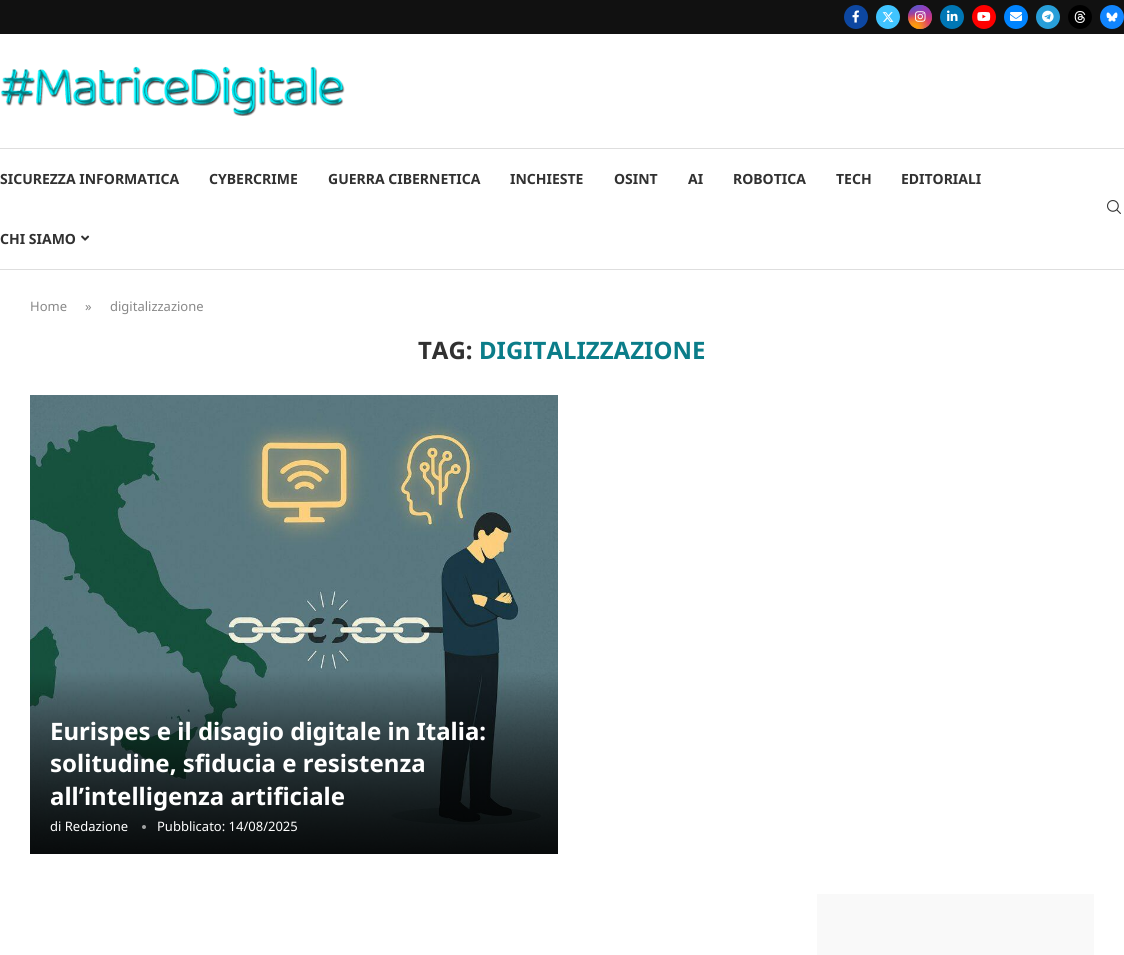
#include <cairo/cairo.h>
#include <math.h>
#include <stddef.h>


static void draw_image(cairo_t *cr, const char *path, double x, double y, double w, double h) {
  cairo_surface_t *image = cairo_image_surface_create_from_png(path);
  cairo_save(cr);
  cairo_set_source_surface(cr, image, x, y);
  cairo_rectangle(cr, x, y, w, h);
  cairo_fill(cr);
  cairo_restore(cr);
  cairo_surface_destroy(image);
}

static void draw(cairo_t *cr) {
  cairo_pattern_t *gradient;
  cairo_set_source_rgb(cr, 1, 1, 1);
  cairo_paint(cr);
  cairo_set_source_rgb(cr, 17 / 255.0, 17 / 255.0, 17 / 255.0);
  cairo_rectangle(cr, 0, 0, 1124, 34);
  cairo_fill(cr);
  cairo_set_source_rgb(cr, 13 / 255.0, 71 / 255.0, 161 / 255.0);
  cairo_arc(cr, 856, 17, 12, 0, 2 * M_PI);
  cairo_fill(cr);
  draw_image(cr, "images/1.png", 852, 10, 7, 13);
  cairo_set_source_rgb(cr, 64 / 255.0, 196 / 255.0, 1);
  cairo_arc(cr, 888, 17, 12, 0, 2 * M_PI);
  cairo_fill(cr);
  draw_image(cr, "images/2.png", 882, 12, 12, 10);
  gradient = cairo_pattern_create_linear(920, 5, 920, 29);
  cairo_pattern_add_color_stop_rgba(gradient, 0, 101 / 255.0, 89 / 255.0, 202 / 255.0, 1);
  cairo_pattern_add_color_stop_rgba(gradient, 0.3, 188 / 255.0, 49 / 255.0, 143 / 255.0, 1);
  cairo_pattern_add_color_stop_rgba(gradient, 0.5, 227 / 255.0, 63 / 255.0, 95 / 255.0, 1);
  cairo_pattern_add_color_stop_rgba(gradient, 0.7, 247 / 255.0, 118 / 255.0, 56 / 255.0, 1);
  cairo_pattern_add_color_stop_rgba(gradient, 1, 254 / 255.0, 198 / 255.0, 109 / 255.0, 1);
  cairo_set_source(cr, gradient);
  cairo_pattern_destroy(gradient);
  cairo_arc(cr, 920, 17, 12, 0, 2 * M_PI);
  cairo_fill(cr);
  gradient = cairo_pattern_create_radial(932, 29, 0, 932, 29, 34);
  cairo_pattern_add_color_stop_rgba(gradient, 0, 212 / 255.0, 49 / 255.0, 120 / 255.0, 1);
  cairo_pattern_add_color_stop_rgba(gradient, 1, 212 / 255.0, 49 / 255.0, 120 / 255.0, 0);
  cairo_set_source(cr, gradient);
  cairo_pattern_destroy(gradient);
  cairo_arc(cr, 920, 17, 12, 0, 2 * M_PI);
  cairo_fill(cr);
  gradient = cairo_pattern_create_radial(0, 0, 0, 0, 0, 1);
  cairo_pattern_set_matrix(gradient, &(cairo_matrix_t){1.0 / 20, 0, 0, 1.0 / 41, -1.0 * 922 / 20, -1.0 * 0.2 / 41});
  cairo_pattern_add_color_stop_rgba(gradient, 0, 143 / 255.0, 68 / 255.0, 199 / 255.0, 1);
  cairo_pattern_add_color_stop_rgba(gradient, 0.5, 143 / 255.0, 68 / 255.0, 199 / 255.0, 0);
  cairo_set_source(cr, gradient);
  cairo_pattern_destroy(gradient);
  cairo_arc(cr, 920, 17, 12, 0, 2 * M_PI);
  cairo_fill(cr);
  gradient = cairo_pattern_create_radial(932, 5, 0, 932, 5, 34);
  cairo_pattern_add_color_stop_rgba(gradient, 0, 137 / 255.0, 61 / 255.0, 194 / 255.0, 1);
  cairo_pattern_add_color_stop_rgba(gradient, 0.5, 137 / 255.0, 61 / 255.0, 194 / 255.0, 0);
  cairo_set_source(cr, gradient);
  cairo_pattern_destroy(gradient);
  cairo_arc(cr, 920, 17, 12, 0, 2 * M_PI);
  cairo_fill(cr);
  gradient = cairo_pattern_create_radial(0, 0, 0, 0, 0, 1);
  cairo_pattern_set_matrix(gradient, &(cairo_matrix_t){1.0 / 27, 0, 0, 1.0 / 51, -1.0 * 913 / 27, -1.0 * -7 / 51});
  cairo_pattern_add_color_stop_rgba(gradient, 0, 82 / 255.0, 88 / 255.0, 207 / 255.0, 1);
  cairo_pattern_add_color_stop_rgba(gradient, 0.5, 82 / 255.0, 88 / 255.0, 207 / 255.0, 0);
  cairo_set_source(cr, gradient);
  cairo_pattern_destroy(gradient);
  cairo_arc(cr, 920, 17, 12, 0, 2 * M_PI);
  cairo_fill(cr);
  gradient = cairo_pattern_create_radial(0, 0, 0, 0, 0, 1);
  cairo_pattern_set_matrix(gradient, &(cairo_matrix_t){1.0 / 34, 0, 0, 1.0 / 42, -1.0 * 908 / 34, -1.0 * -1 / 42});
  cairo_pattern_add_color_stop_rgba(gradient, 0, 82 / 255.0, 88 / 255.0, 207 / 255.0, 1);
  cairo_pattern_add_color_stop_rgba(gradient, 0.5, 82 / 255.0, 88 / 255.0, 207 / 255.0, 0);
  cairo_set_source(cr, gradient);
  cairo_pattern_destroy(gradient);
  cairo_arc(cr, 920, 17, 12, 0, 2 * M_PI);
  cairo_fill(cr);
  gradient = cairo_pattern_create_radial(908, 39, 0, 908, 39, 41);
  cairo_pattern_add_color_stop_rgba(gradient, 0, 239 / 255.0, 161 / 255.0, 28 / 255.0, 1);
  cairo_pattern_add_color_stop_rgba(gradient, 0.5, 239 / 255.0, 161 / 255.0, 28 / 255.0, 0);
  cairo_set_source(cr, gradient);
  cairo_pattern_destroy(gradient);
  cairo_arc(cr, 920, 17, 12, 0, 2 * M_PI);
  cairo_fill(cr);
  gradient = cairo_pattern_create_radial(916, 27, 0, 916, 27, 27);
  cairo_pattern_add_color_stop_rgba(gradient, 0, 1, 161 / 255.0, 0, 1);
  cairo_pattern_add_color_stop_rgba(gradient, 0.5, 1, 161 / 255.0, 0, 0);
  cairo_set_source(cr, gradient);
  cairo_pattern_destroy(gradient);
  cairo_arc(cr, 920, 17, 12, 0, 2 * M_PI);
  cairo_fill(cr);
  draw_image(cr, "images/3.png", 915, 11, 11, 11);
  cairo_set_source_rgb(cr, 0, 119 / 255.0, 181 / 255.0);
  cairo_arc(cr, 952, 17, 12, 0, 2 * M_PI);
  cairo_fill(cr);
  draw_image(cr, "images/4.png", 947, 10, 11, 11);
  cairo_set_source_rgb(cr, 1, 0, 0);
  cairo_arc(cr, 984, 17, 12, 0, 2 * M_PI);
  cairo_fill(cr);
  draw_image(cr, "images/5.png", 977, 12, 14, 9);
  cairo_set_source_rgb(cr, 0, 132 / 255.0, 1);
  cairo_arc(cr, 1016, 17, 12, 0, 2 * M_PI);
  cairo_fill(cr);
  draw_image(cr, "images/6.png", 1010, 12, 12, 9);
  cairo_set_source_rgb(cr, 40 / 255.0, 159 / 255.0, 217 / 255.0);
  cairo_arc(cr, 1048, 17, 12, 0, 2 * M_PI);
  cairo_fill(cr);
  draw_image(cr, "images/7.png", 1042, 10, 12, 13);
  cairo_set_source_rgb(cr, 0, 0, 0);
  cairo_arc(cr, 1080, 17, 12, 0, 2 * M_PI);
  cairo_fill(cr);
  draw_image(cr, "images/8.png", 1074, 11, 12, 12);
  cairo_set_source_rgb(cr, 17 / 255.0, 133 / 255.0, 254 / 255.0);
  cairo_arc(cr, 1112, 17, 12, 0, 2 * M_PI);
  cairo_fill(cr);
  draw_image(cr, "images/9.png", 1106, 12, 12, 10);
  draw_image(cr, "images/10.png", 0, 66, 345, 50);
  cairo_set_source_rgb(cr, 222 / 255.0, 222 / 255.0, 222 / 255.0);
  cairo_rectangle(cr, 0, 148, 1124, 1);
  cairo_fill(cr);
  cairo_rectangle(cr, 0, 269, 1124, 1);
  cairo_fill(cr);
  draw_image(cr, "images/11.png", 81, 235, 9, 6);
  draw_image(cr, "images/12.png", 1107, 200, 14, 14);
  draw_image(cr, "images/13.png", 30, 395, 528, 459);
  cairo_set_source_rgb(cr, 159 / 255.0, 161 / 255.0, 161 / 255.0);
  cairo_arc(cr, 144, 827, 2, 0, 2 * M_PI);
  cairo_fill(cr);
  cairo_set_source_rgb(cr, 249 / 255.0, 249 / 255.0, 249 / 255.0);
  cairo_rectangle(cr, 817, 894, 277, 61);
  cairo_fill(cr);
  cairo_select_font_face(cr, "Noto Sans", CAIRO_FONT_SLANT_NORMAL, CAIRO_FONT_WEIGHT_BOLD);
  cairo_set_font_size(cr, 14);
  cairo_set_source_rgb(cr, 49 / 255.0, 49 / 255.0, 49 / 255.0);
  cairo_move_to(cr, 0, 184);
  cairo_show_text(cr, "SICUREZZA INFORMATICA");
  cairo_move_to(cr, 209, 184);
  cairo_show_text(cr, "CYBERCRIME");
  cairo_move_to(cr, 328, 184);
  cairo_show_text(cr, "GUERRA CIBERNETICA");
  cairo_move_to(cr, 510, 184);
  cairo_show_text(cr, "INCHIESTE");
  cairo_move_to(cr, 614, 184);
  cairo_show_text(cr, "OSINT");
  cairo_move_to(cr, 688, 184);
  cairo_show_text(cr, "AI");
  cairo_move_to(cr, 733, 184);
  cairo_show_text(cr, "ROBOTICA");
  cairo_move_to(cr, 836, 184);
  cairo_show_text(cr, "TECH");
  cairo_move_to(cr, 901, 184);
  cairo_show_text(cr, "EDITORIALI");
  cairo_move_to(cr, 0, 244);
  cairo_show_text(cr, "CHI SIAMO");
  cairo_select_font_face(cr, "Noto Sans", CAIRO_FONT_SLANT_NORMAL, CAIRO_FONT_WEIGHT_NORMAL);
  cairo_set_font_size(cr, 13);
  cairo_set_source_rgb(cr, 136 / 255.0, 136 / 255.0, 136 / 255.0);
  cairo_move_to(cr, 30, 311);
  cairo_show_text(cr, "Home");
  cairo_move_to(cr, 85, 311);
  cairo_show_text(cr, "»");
  cairo_move_to(cr, 110, 311);
  cairo_show_text(cr, "digitalizzazione");
  cairo_select_font_face(cr, "Noto Sans", CAIRO_FONT_SLANT_NORMAL, CAIRO_FONT_WEIGHT_BOLD);
  cairo_set_font_size(cr, 24);
  cairo_set_source_rgb(cr, 49 / 255.0, 49 / 255.0, 49 / 255.0);
  cairo_move_to(cr, 418, 359);
  cairo_show_text(cr, "TAG:");
  cairo_set_source_rgb(cr, 11 / 255.0, 125 / 255.0, 137 / 255.0);
  cairo_move_to(cr, 479, 359);
  cairo_show_text(cr, "DIGITALIZZAZIONE");
  cairo_set_source_rgb(cr, 1, 1, 1);
  cairo_move_to(cr, 50, 740);
  cairo_show_text(cr, "Eurispes e il disagio digitale in Italia:");
  cairo_move_to(cr, 50, 772);
  cairo_show_text(cr, "solitudine, sfiducia e resistenza");
  cairo_move_to(cr, 50, 805);
  cairo_show_text(cr, "all’intelligenza artificiale");
  cairo_select_font_face(cr, "Noto Sans", CAIRO_FONT_SLANT_NORMAL, CAIRO_FONT_WEIGHT_NORMAL);
  cairo_set_font_size(cr, 13);
  cairo_move_to(cr, 50, 831);
  cairo_show_text(cr, "di Redazione");
  cairo_move_to(cr, 157, 831);
  cairo_show_text(cr, "Pubblicato: 14/08/2025");
}

int main(void) {
  cairo_surface_t *surface = cairo_image_surface_create(CAIRO_FORMAT_RGB24, 1124, 955);
  cairo_t *cr = cairo_create(surface);
  cairo_font_options_t *options = cairo_font_options_create();
  cairo_font_options_set_hint_metrics(options, CAIRO_HINT_METRICS_OFF);
  cairo_font_options_set_hint_style(options, CAIRO_HINT_STYLE_NONE);
  cairo_set_font_options(cr, options);
  cairo_set_miter_limit(cr, 4);
  draw(cr);
  cairo_surface_write_to_png(surface, "out.png");
  cairo_font_options_destroy(options);
  cairo_destroy(cr);
  cairo_surface_destroy(surface);
  return 0;
}
